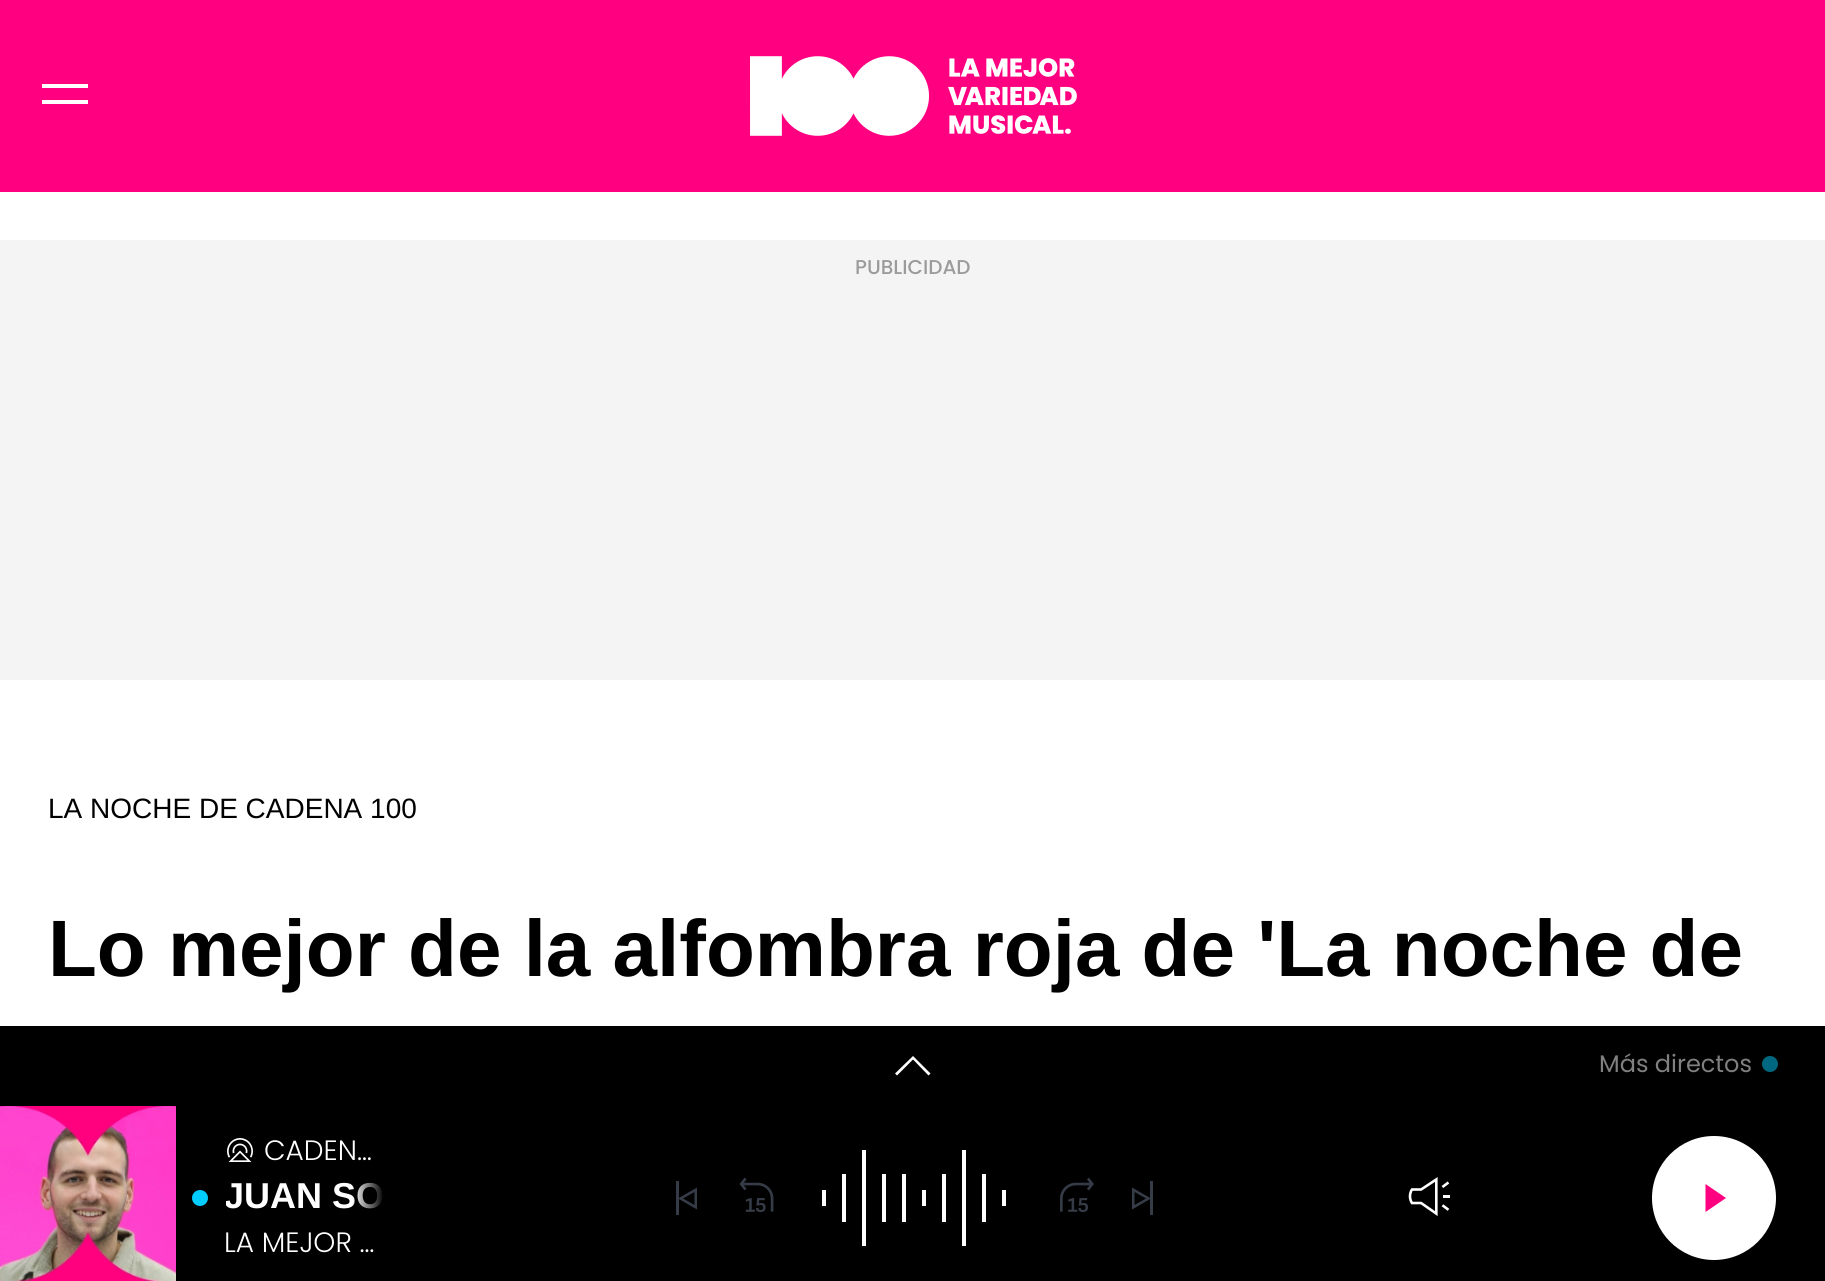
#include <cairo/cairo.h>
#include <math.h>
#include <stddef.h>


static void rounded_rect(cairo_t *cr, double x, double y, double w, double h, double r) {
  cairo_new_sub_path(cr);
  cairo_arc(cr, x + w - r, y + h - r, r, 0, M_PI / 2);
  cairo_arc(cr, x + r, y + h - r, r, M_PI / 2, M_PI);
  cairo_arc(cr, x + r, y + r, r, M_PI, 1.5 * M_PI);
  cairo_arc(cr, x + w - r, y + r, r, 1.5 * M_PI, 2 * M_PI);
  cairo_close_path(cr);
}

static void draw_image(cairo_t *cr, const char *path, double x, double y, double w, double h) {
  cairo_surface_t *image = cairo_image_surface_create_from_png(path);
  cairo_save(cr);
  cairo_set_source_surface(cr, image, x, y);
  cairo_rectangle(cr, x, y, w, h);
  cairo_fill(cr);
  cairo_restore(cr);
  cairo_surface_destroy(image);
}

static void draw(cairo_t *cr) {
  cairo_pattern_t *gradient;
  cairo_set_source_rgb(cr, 1, 1, 1);
  cairo_paint(cr);
  cairo_set_source_rgb(cr, 1, 0, 128 / 255.0);
  cairo_rectangle(cr, 0, 0, 1825, 192);
  cairo_fill(cr);
  cairo_set_source_rgb(cr, 1, 1, 1);
  cairo_rectangle(cr, 42, 84, 46, 4);
  cairo_fill(cr);
  cairo_rectangle(cr, 42, 100, 46, 4);
  cairo_fill(cr);
  draw_image(cr, "images/1.png", 750, 56, 327, 80);
  cairo_set_source_rgb(cr, 244 / 255.0, 244 / 255.0, 244 / 255.0);
  cairo_rectangle(cr, 0, 240, 1825, 440);
  cairo_fill(cr);
  cairo_set_source_rgb(cr, 0, 0, 0);
  cairo_rectangle(cr, 0, 1026, 1825, 255);
  cairo_fill(cr);
  cairo_set_source_rgb(cr, 1, 1, 1);
  cairo_set_fill_rule(cr, CAIRO_FILL_RULE_EVEN_ODD);
  cairo_new_path(cr);
  cairo_move_to(cr, 895, 1073.5);
  cairo_line_to(cr, 897, 1075.5);
  cairo_line_to(cr, 913, 1059.5);
  cairo_line_to(cr, 928.5, 1075.5);
  cairo_line_to(cr, 930.5, 1073.5);
  cairo_line_to(cr, 913, 1056);
  cairo_close_path(cr);
  cairo_fill(cr);
  cairo_set_source_rgb(cr, 0, 103 / 255.0, 128 / 255.0);
  cairo_arc(cr, 1770, 1064, 8, 0, 2 * M_PI);
  cairo_fill(cr);
  draw_image(cr, "images/2.png", 0, 1106, 176, 175);
  cairo_set_source_rgb(cr, 0, 205 / 255.0, 1);
  cairo_arc(cr, 200, 1198, 8, 0, 2 * M_PI);
  cairo_fill(cr);
  draw_image(cr, "images/3.png", 227, 1138, 26, 24);
  cairo_set_source_rgb(cr, 54 / 255.0, 60 / 255.0, 71 / 255.0);
  cairo_rectangle(cr, 676, 1181, 3, 34);
  cairo_fill(cr);
  cairo_new_path(cr);
  cairo_move_to(cr, 697, 1187.5);
  cairo_line_to(cr, 678, 1198.5);
  cairo_line_to(cr, 697, 1209.5);
  cairo_close_path(cr);
  cairo_move_to(cr, 694.5, 1192);
  cairo_line_to(cr, 683, 1198.5);
  cairo_line_to(cr, 694.5, 1205);
  cairo_close_path(cr);
  cairo_fill(cr);
  draw_image(cr, "images/4.png", 739, 1177, 35, 36);
  draw_image(cr, "images/5.png", 822, 1150, 184, 96);
  draw_image(cr, "images/6.png", 1060, 1177, 34, 35);
  cairo_rectangle(cr, 1150, 1181, 3, 34);
  cairo_fill(cr);
  cairo_new_path(cr);
  cairo_move_to(cr, 1132, 1187.5);
  cairo_line_to(cr, 1151, 1198.5);
  cairo_line_to(cr, 1132, 1209.5);
  cairo_close_path(cr);
  cairo_move_to(cr, 1134.5, 1192);
  cairo_line_to(cr, 1146, 1198.5);
  cairo_line_to(cr, 1134.5, 1205);
  cairo_close_path(cr);
  cairo_fill(cr);
  draw_image(cr, "images/7.png", 1408, 1177, 42, 39);
  cairo_set_source_rgb(cr, 1, 1, 1);
  cairo_arc(cr, 1714, 1198, 62, 0, 2 * M_PI);
  cairo_fill(cr);
  cairo_set_source_rgb(cr, 1, 0, 128 / 255.0);
  cairo_set_fill_rule(cr, CAIRO_FILL_RULE_WINDING);
  cairo_new_path(cr);
  cairo_move_to(cr, 1726, 1198);
  cairo_line_to(cr, 1705.5, 1212);
  cairo_line_to(cr, 1705.5, 1184);
  cairo_close_path(cr);
  cairo_fill(cr);
  cairo_select_font_face(cr, "Poppins Medium", CAIRO_FONT_SLANT_NORMAL, CAIRO_FONT_WEIGHT_NORMAL);
  cairo_set_font_size(cr, 20);
  cairo_set_source_rgb(cr, 155 / 255.0, 155 / 255.0, 155 / 255.0);
  cairo_move_to(cr, 855, 274);
  cairo_show_text(cr, "PUBLICIDAD");
  cairo_select_font_face(cr, "Liberation Sans", CAIRO_FONT_SLANT_NORMAL, CAIRO_FONT_WEIGHT_NORMAL);
  cairo_set_font_size(cr, 28);
  cairo_set_source_rgb(cr, 0, 0, 0);
  cairo_move_to(cr, 48, 818);
  cairo_show_text(cr, "LA NOCHE DE CADENA 100");
  cairo_select_font_face(cr, "Liberation Sans", CAIRO_FONT_SLANT_NORMAL, CAIRO_FONT_WEIGHT_BOLD);
  cairo_set_font_size(cr, 80);
  cairo_move_to(cr, 48, 976);
  cairo_show_text(cr, "Lo mejor de la alfombra roja de 'La noche de");
  cairo_select_font_face(cr, "Poppins", CAIRO_FONT_SLANT_NORMAL, CAIRO_FONT_WEIGHT_NORMAL);
  cairo_set_font_size(cr, 24);
  cairo_set_source_rgb(cr, 128 / 255.0, 128 / 255.0, 128 / 255.0);
  cairo_move_to(cr, 1599, 1072);
  cairo_show_text(cr, "Más directos");
  cairo_select_font_face(cr, "Poppins Light", CAIRO_FONT_SLANT_NORMAL, CAIRO_FONT_WEIGHT_NORMAL);
  cairo_set_font_size(cr, 28);
  cairo_set_source_rgb(cr, 1, 1, 1);
  cairo_move_to(cr, 264, 1160);
  cairo_show_text(cr, "CADEN…");
  cairo_select_font_face(cr, "Liberation Sans", CAIRO_FONT_SLANT_NORMAL, CAIRO_FONT_WEIGHT_BOLD);
  cairo_set_font_size(cr, 36);
  cairo_move_to(cr, 224, 1208);
  cairo_show_text(cr, "JUAN SO");
  cairo_set_source_rgb(cr, 0, 0, 0);
  rounded_rect(cr, 224, 1174, 2, 44, 1);
  cairo_fill(cr);
  gradient = cairo_pattern_create_linear(352, 1196, 384, 1196);
  cairo_pattern_add_color_stop_rgba(gradient, 0, 0, 0, 0, 0);
  cairo_pattern_add_color_stop_rgba(gradient, 1, 0, 0, 0, 1);
  cairo_set_source(cr, gradient);
  cairo_pattern_destroy(gradient);
  cairo_rectangle(cr, 353, 1182, 30, 27);
  cairo_fill(cr);
  cairo_select_font_face(cr, "Poppins Light", CAIRO_FONT_SLANT_NORMAL, CAIRO_FONT_WEIGHT_NORMAL);
  cairo_set_font_size(cr, 28);
  cairo_set_source_rgb(cr, 1, 1, 1);
  cairo_move_to(cr, 224, 1252);
  cairo_show_text(cr, "LA MEJOR …");
}

int main(void) {
  cairo_surface_t *surface = cairo_image_surface_create(CAIRO_FORMAT_RGB24, 1825, 1281);
  cairo_t *cr = cairo_create(surface);
  cairo_font_options_t *options = cairo_font_options_create();
  cairo_font_options_set_hint_metrics(options, CAIRO_HINT_METRICS_OFF);
  cairo_font_options_set_hint_style(options, CAIRO_HINT_STYLE_NONE);
  cairo_set_font_options(cr, options);
  cairo_set_miter_limit(cr, 4);
  draw(cr);
  cairo_surface_write_to_png(surface, "out.png");
  cairo_font_options_destroy(options);
  cairo_destroy(cr);
  cairo_surface_destroy(surface);
  return 0;
}
